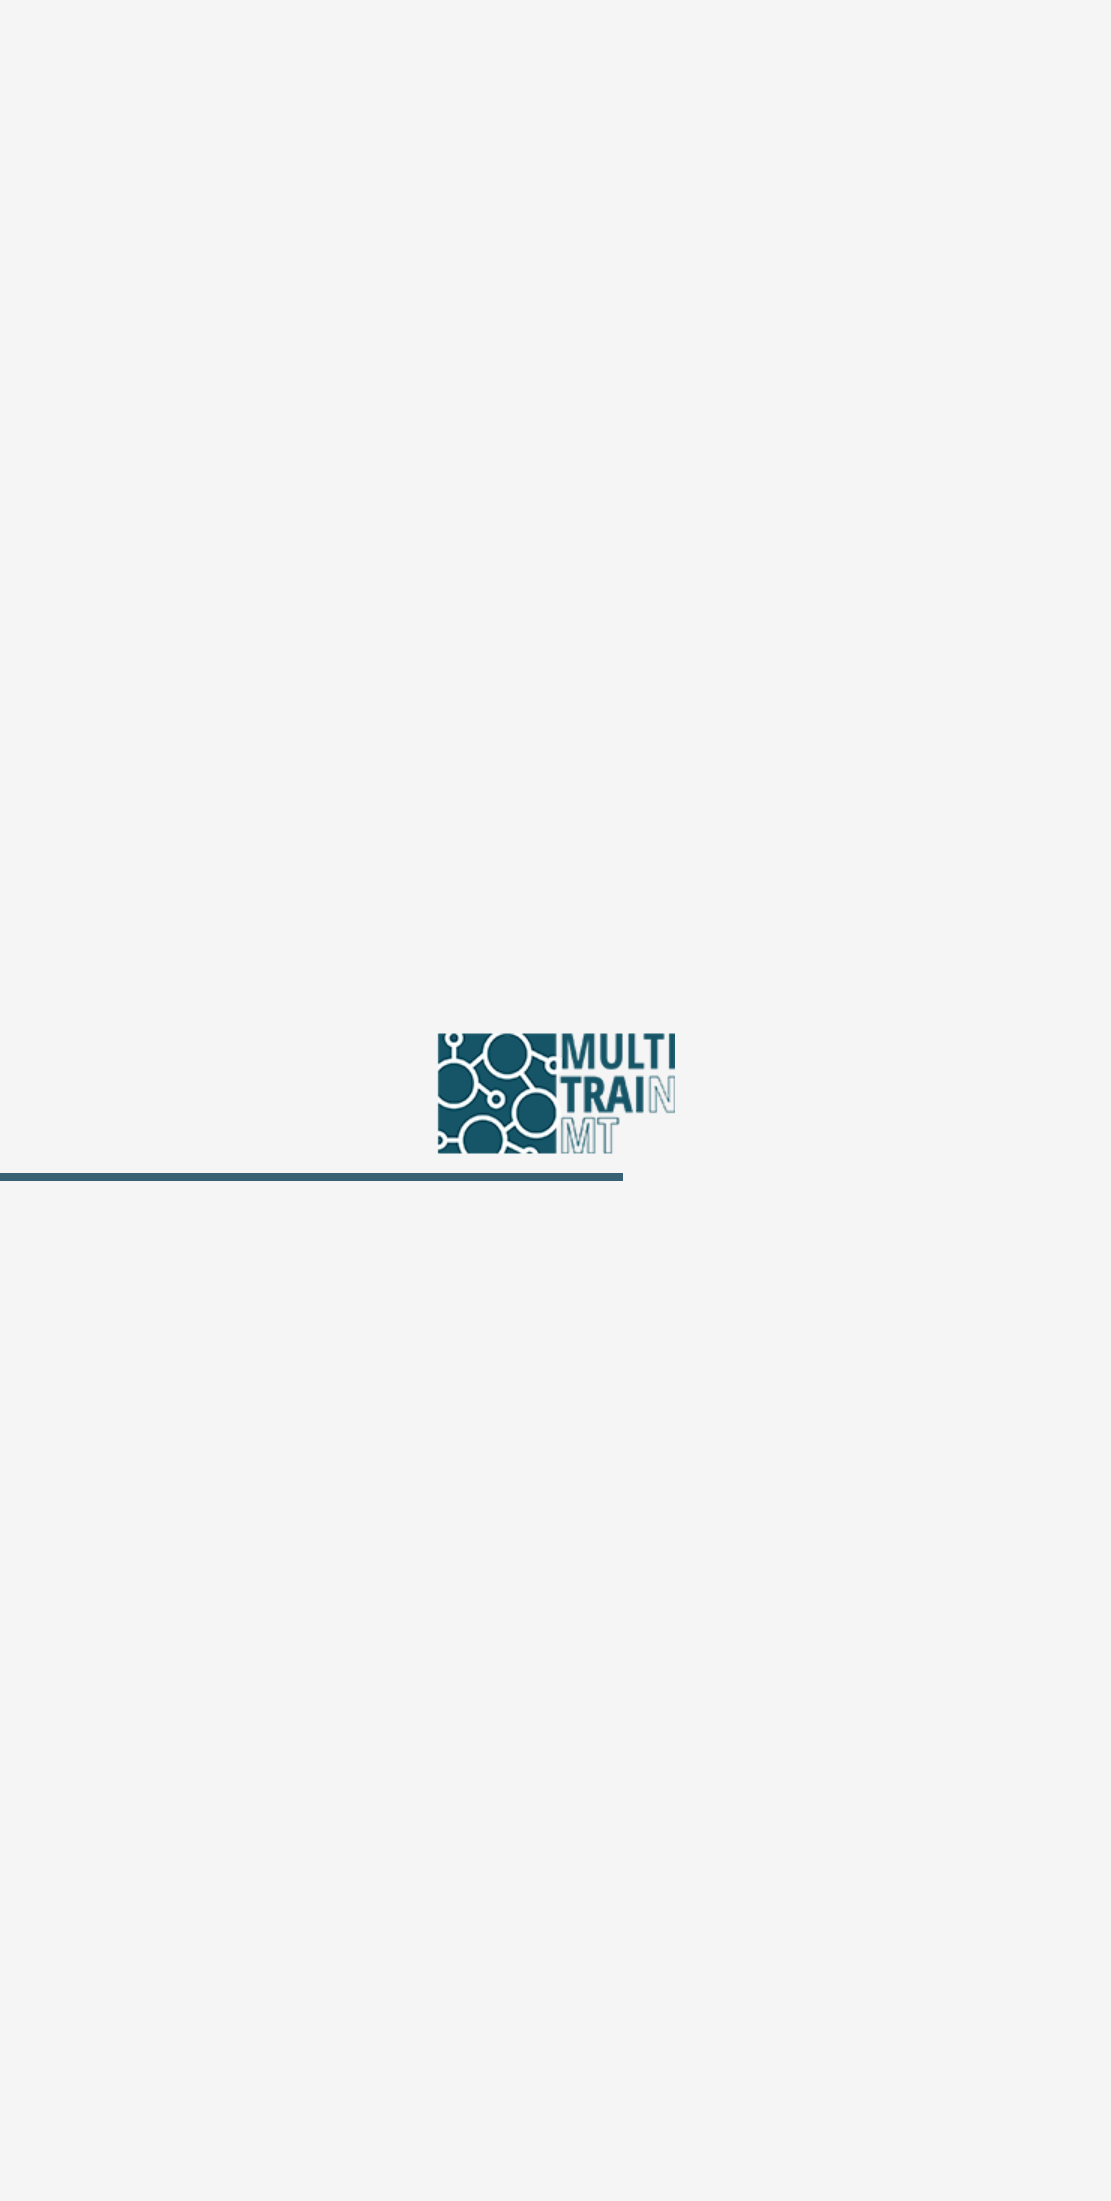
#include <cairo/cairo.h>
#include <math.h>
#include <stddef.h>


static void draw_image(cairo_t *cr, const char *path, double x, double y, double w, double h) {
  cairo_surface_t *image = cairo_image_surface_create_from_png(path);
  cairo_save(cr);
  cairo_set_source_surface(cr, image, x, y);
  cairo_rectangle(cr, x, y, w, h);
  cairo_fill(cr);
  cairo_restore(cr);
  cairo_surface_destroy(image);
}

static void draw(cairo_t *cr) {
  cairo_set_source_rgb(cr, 245 / 255.0, 245 / 255.0, 245 / 255.0);
  cairo_paint(cr);
  draw_image(cr, "images/1.png", 437, 1033, 238, 121);
  cairo_set_source_rgb(cr, 57 / 255.0, 97 / 255.0, 117 / 255.0);
  cairo_rectangle(cr, 0, 1173, 623, 8);
  cairo_fill(cr);
}

int main(void) {
  cairo_surface_t *surface = cairo_image_surface_create(CAIRO_FORMAT_RGB24, 1111, 2201);
  cairo_t *cr = cairo_create(surface);
  cairo_font_options_t *options = cairo_font_options_create();
  cairo_font_options_set_hint_metrics(options, CAIRO_HINT_METRICS_OFF);
  cairo_font_options_set_hint_style(options, CAIRO_HINT_STYLE_NONE);
  cairo_set_font_options(cr, options);
  cairo_set_miter_limit(cr, 4);
  draw(cr);
  cairo_surface_write_to_png(surface, "out.png");
  cairo_font_options_destroy(options);
  cairo_destroy(cr);
  cairo_surface_destroy(surface);
  return 0;
}
